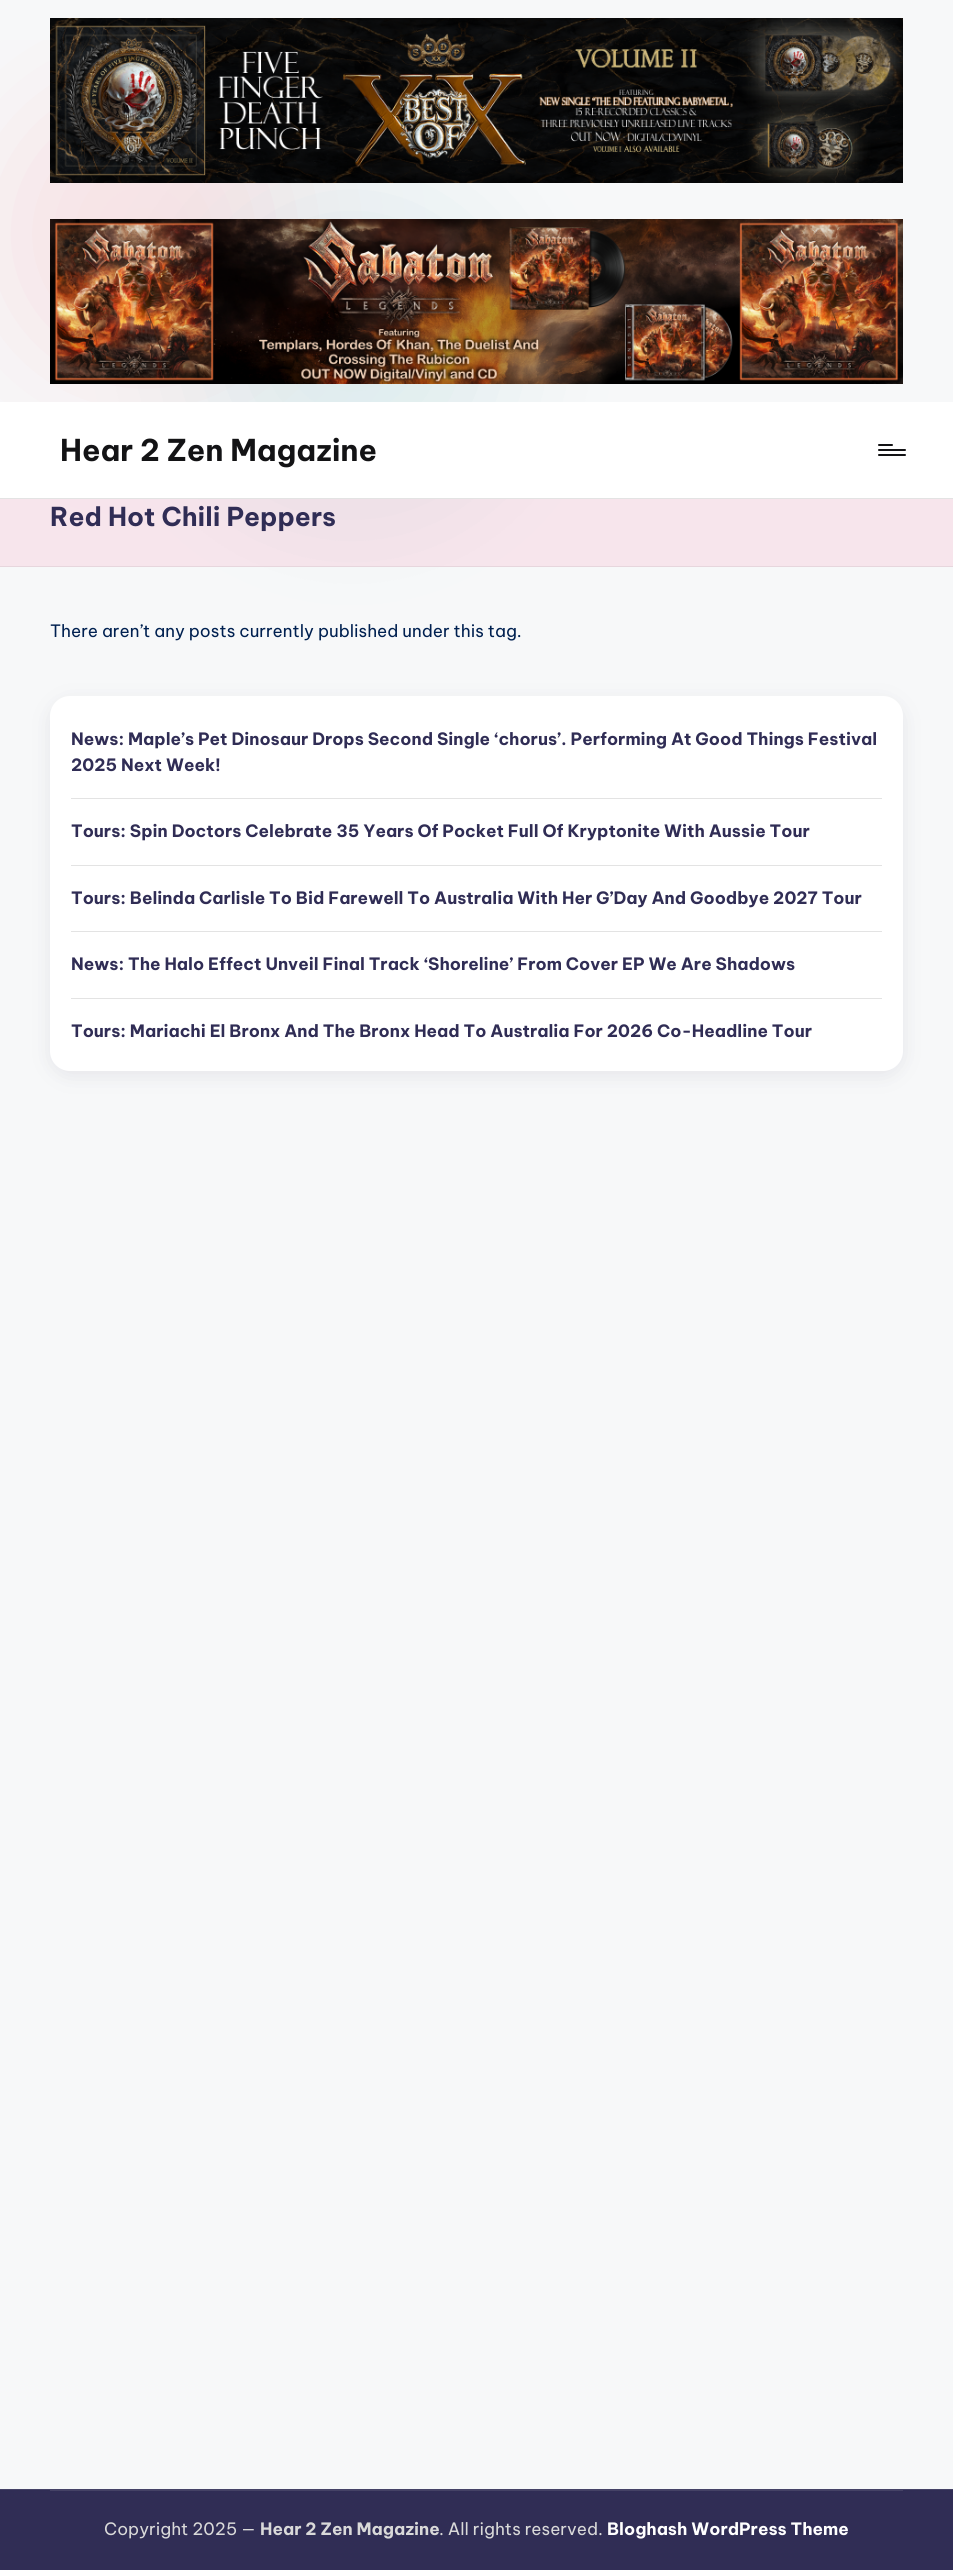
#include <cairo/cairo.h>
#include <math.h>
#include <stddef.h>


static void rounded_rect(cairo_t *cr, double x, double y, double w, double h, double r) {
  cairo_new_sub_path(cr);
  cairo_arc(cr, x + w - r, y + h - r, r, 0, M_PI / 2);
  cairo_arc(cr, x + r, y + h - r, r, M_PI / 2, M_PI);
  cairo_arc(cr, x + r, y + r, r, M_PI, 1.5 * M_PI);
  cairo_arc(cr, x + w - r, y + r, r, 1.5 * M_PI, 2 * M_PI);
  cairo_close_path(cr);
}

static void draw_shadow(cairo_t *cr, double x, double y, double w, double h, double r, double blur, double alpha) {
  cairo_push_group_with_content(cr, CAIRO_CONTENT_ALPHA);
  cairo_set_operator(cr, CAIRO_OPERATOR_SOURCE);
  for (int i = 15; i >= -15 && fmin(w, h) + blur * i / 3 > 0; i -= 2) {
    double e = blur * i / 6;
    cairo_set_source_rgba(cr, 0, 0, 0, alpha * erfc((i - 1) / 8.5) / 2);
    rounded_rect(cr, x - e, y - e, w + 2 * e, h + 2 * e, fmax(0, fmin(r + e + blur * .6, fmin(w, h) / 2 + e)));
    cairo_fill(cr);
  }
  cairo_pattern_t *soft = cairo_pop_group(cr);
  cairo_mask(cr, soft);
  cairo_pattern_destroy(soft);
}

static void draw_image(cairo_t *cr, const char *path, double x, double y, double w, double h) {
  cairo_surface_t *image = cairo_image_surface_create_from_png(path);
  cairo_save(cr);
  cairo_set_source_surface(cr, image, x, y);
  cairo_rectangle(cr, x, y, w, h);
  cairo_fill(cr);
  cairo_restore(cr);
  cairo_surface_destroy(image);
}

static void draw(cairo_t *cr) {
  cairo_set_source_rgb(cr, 247 / 255.0, 248 / 255.0, 249 / 255.0);
  cairo_paint(cr);
  cairo_save(cr);
  cairo_rectangle(cr, 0, 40, 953, 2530);
  cairo_clip(cr);
  cairo_set_source_rgb(cr, 247 / 255.0, 227 / 255.0, 230 / 255.0);
  draw_shadow(cr, 0, 90, 288, 288, 144, 64, 1);
  cairo_restore(cr);
  cairo_set_source_rgb(cr, 4 / 255.0, 134 / 255.0, 139 / 255.0);
  draw_shadow(cr, 208, 200, 288, 288, 144, 64, 0.1);
  draw_image(cr, "images/1.png", 50, 18, 853, 165);
  draw_image(cr, "images/2.png", 50, 219, 853, 165);
  cairo_set_source_rgb(cr, 1, 1, 1);
  cairo_rectangle(cr, 0, 402, 953, 96);
  cairo_fill(cr);
  cairo_set_source_rgb(cr, 227 / 255.0, 227 / 255.0, 227 / 255.0);
  cairo_rectangle(cr, 0, 498, 953, 1);
  cairo_fill(cr);
  cairo_set_source_rgb(cr, 19 / 255.0, 19 / 255.0, 21 / 255.0);
  rounded_rect(cr, 878, 449, 28, 2, 1);
  cairo_fill(cr);
  rounded_rect(cr, 878, 444, 15, 2, 1);
  cairo_fill(cr);
  rounded_rect(cr, 878, 454, 28, 2, 1);
  cairo_fill(cr);
  cairo_set_source_rgba(cr, 244 / 255.0, 54 / 255.0, 118 / 255.0, 0.1);
  cairo_rectangle(cr, 0, 499, 953, 67);
  cairo_fill(cr);
  cairo_set_source_rgb(cr, 231 / 255.0, 214 / 255.0, 221 / 255.0);
  cairo_rectangle(cr, 0, 566, 953, 1);
  cairo_fill(cr);
  cairo_set_source_rgb(cr, 69 / 255.0, 67 / 255.0, 96 / 255.0);
  draw_shadow(cr, 50, 701, 853, 375, 20, 10, 0.1);
  cairo_set_source_rgb(cr, 1, 1, 1);
  rounded_rect(cr, 50, 696, 853, 375, 20);
  cairo_fill(cr);
  cairo_set_source_rgb(cr, 227 / 255.0, 227 / 255.0, 227 / 255.0);
  cairo_rectangle(cr, 71, 798, 811, 1);
  cairo_fill(cr);
  cairo_rectangle(cr, 71, 865, 811, 1);
  cairo_fill(cr);
  cairo_rectangle(cr, 71, 931, 811, 1);
  cairo_fill(cr);
  cairo_rectangle(cr, 71, 998, 811, 1);
  cairo_fill(cr);
  cairo_set_source_rgb(cr, 48 / 255.0, 45 / 255.0, 85 / 255.0);
  cairo_rectangle(cr, 0, 2490, 953, 80);
  cairo_fill(cr);
  cairo_set_source_rgb(cr, 69 / 255.0, 66 / 255.0, 102 / 255.0);
  cairo_rectangle(cr, 0, 2489, 953, 1);
  cairo_fill(cr);
  cairo_rectangle(cr, 50, 2490, 853, 1);
  cairo_fill(cr);
  cairo_select_font_face(cr, "Be Vietnam Pro", CAIRO_FONT_SLANT_NORMAL, CAIRO_FONT_WEIGHT_BOLD);
  cairo_set_font_size(cr, 30);
  cairo_set_source_rgb(cr, 19 / 255.0, 19 / 255.0, 21 / 255.0);
  cairo_move_to(cr, 60, 461);
  cairo_show_text(cr, "Hear 2 Zen Magazine");
  cairo_set_font_size(cr, 26);
  cairo_set_source_rgb(cr, 48 / 255.0, 45 / 255.0, 85 / 255.0);
  cairo_move_to(cr, 50, 526);
  cairo_show_text(cr, "Red Hot Chili Peppers");
  cairo_select_font_face(cr, "Be Vietnam Pro", CAIRO_FONT_SLANT_NORMAL, CAIRO_FONT_WEIGHT_NORMAL);
  cairo_set_font_size(cr, 17);
  cairo_set_source_rgb(cr, 0, 32 / 255.0, 80 / 255.0);
  cairo_move_to(cr, 50, 637);
  cairo_show_text(cr, "There aren’t any posts currently published under this tag.");
  cairo_select_font_face(cr, "Be Vietnam Pro", CAIRO_FONT_SLANT_NORMAL, CAIRO_FONT_WEIGHT_BOLD);
  cairo_set_source_rgb(cr, 48 / 255.0, 45 / 255.0, 85 / 255.0);
  cairo_move_to(cr, 71, 745);
  cairo_show_text(cr, "News: Maple’s Pet Dinosaur Drops Second Single ‘chorus’. Performing At Good Things Festival");
  cairo_move_to(cr, 71, 771);
  cairo_show_text(cr, "2025 Next Week!");
  cairo_move_to(cr, 71, 837);
  cairo_show_text(cr, "Tours: Spin Doctors Celebrate 35 Years Of Pocket Full Of Kryptonite With Aussie Tour");
  cairo_move_to(cr, 71, 904);
  cairo_show_text(cr, "Tours: Belinda Carlisle To Bid Farewell To Australia With Her G’Day And Goodbye 2027 Tour");
  cairo_move_to(cr, 71, 970);
  cairo_show_text(cr, "News: The Halo Effect Unveil Final Track ‘Shoreline’ From Cover EP We Are Shadows");
  cairo_move_to(cr, 71, 1037);
  cairo_show_text(cr, "Tours: Mariachi El Bronx And The Bronx Head To Australia For 2026 Co-Headline Tour");
  cairo_select_font_face(cr, "Be Vietnam Pro", CAIRO_FONT_SLANT_NORMAL, CAIRO_FONT_WEIGHT_NORMAL);
  cairo_set_source_rgb(cr, 217 / 255.0, 217 / 255.0, 217 / 255.0);
  cairo_move_to(cr, 104, 2535);
  cairo_show_text(cr, "Copyright 2025 —");
  cairo_select_font_face(cr, "Be Vietnam Pro", CAIRO_FONT_SLANT_NORMAL, CAIRO_FONT_WEIGHT_BOLD);
  cairo_move_to(cr, 260, 2535);
  cairo_show_text(cr, "Hear 2 Zen Magazine");
  cairo_select_font_face(cr, "Be Vietnam Pro", CAIRO_FONT_SLANT_NORMAL, CAIRO_FONT_WEIGHT_NORMAL);
  cairo_move_to(cr, 439, 2535);
  cairo_show_text(cr, ". All rights reserved.");
  cairo_select_font_face(cr, "Be Vietnam Pro", CAIRO_FONT_SLANT_NORMAL, CAIRO_FONT_WEIGHT_BOLD);
  cairo_set_source_rgb(cr, 1, 1, 1);
  cairo_move_to(cr, 607, 2535);
  cairo_show_text(cr, "Bloghash WordPress Theme");
}

int main(void) {
  cairo_surface_t *surface = cairo_image_surface_create(CAIRO_FORMAT_RGB24, 953, 2570);
  cairo_t *cr = cairo_create(surface);
  cairo_font_options_t *options = cairo_font_options_create();
  cairo_font_options_set_hint_metrics(options, CAIRO_HINT_METRICS_OFF);
  cairo_font_options_set_hint_style(options, CAIRO_HINT_STYLE_NONE);
  cairo_set_font_options(cr, options);
  cairo_set_miter_limit(cr, 4);
  draw(cr);
  cairo_surface_write_to_png(surface, "out.png");
  cairo_font_options_destroy(options);
  cairo_destroy(cr);
  cairo_surface_destroy(surface);
  return 0;
}
